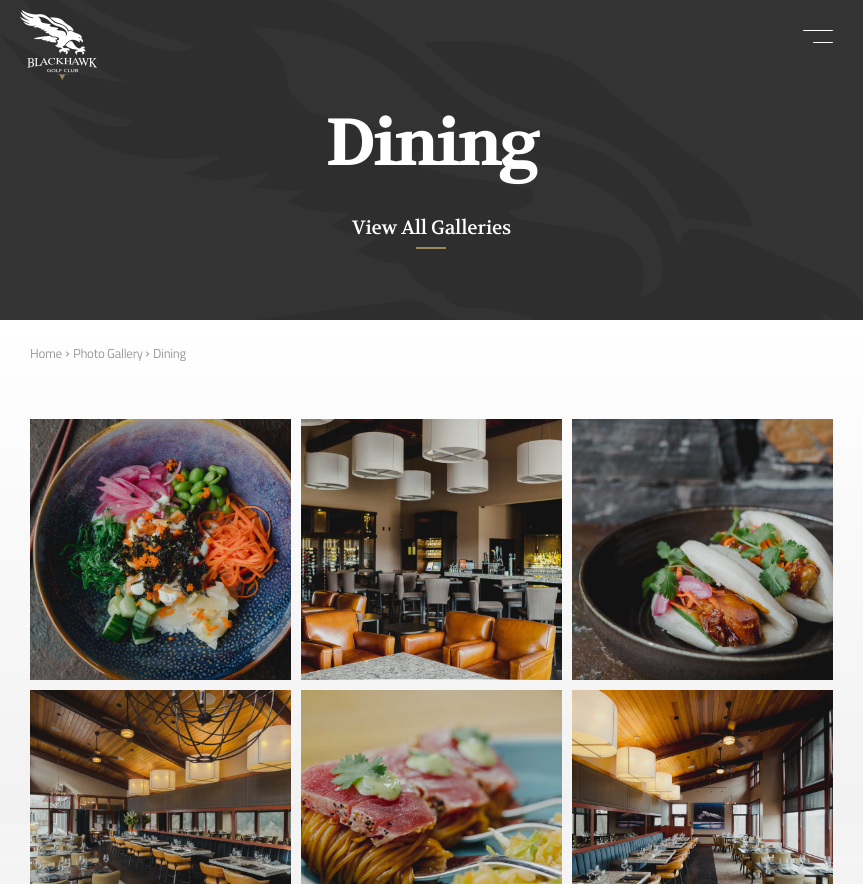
#include <cairo/cairo.h>
#include <math.h>
#include <stddef.h>


static void draw_spaced(cairo_t *cr, double x, double y, const char *s, double letter, double word) {
  cairo_move_to(cr, x, y);
  while (*s) {
    char ch[5] = {0};
    int n = 0;
    do ch[n++] = *s++; while ((*s & 0xC0) == 0x80);
    cairo_show_text(cr, ch);
    cairo_rel_move_to(cr, letter + word * (*ch == ' '), 0);
  }
}

static void rounded_rect(cairo_t *cr, double x, double y, double w, double h, double r) {
  cairo_new_sub_path(cr);
  cairo_arc(cr, x + w - r, y + h - r, r, 0, M_PI / 2);
  cairo_arc(cr, x + r, y + h - r, r, M_PI / 2, M_PI);
  cairo_arc(cr, x + r, y + r, r, M_PI, 1.5 * M_PI);
  cairo_arc(cr, x + w - r, y + r, r, 1.5 * M_PI, 2 * M_PI);
  cairo_close_path(cr);
}

static void draw_image(cairo_t *cr, const char *path, double x, double y, double w, double h) {
  cairo_surface_t *image = cairo_image_surface_create_from_png(path);
  cairo_save(cr);
  cairo_set_source_surface(cr, image, x, y);
  cairo_rectangle(cr, x, y, w, h);
  cairo_fill(cr);
  cairo_restore(cr);
  cairo_surface_destroy(image);
}

static void draw(cairo_t *cr) {
  cairo_pattern_t *gradient;
  cairo_set_source_rgb(cr, 51 / 255.0, 51 / 255.0, 51 / 255.0);
  cairo_paint(cr);
  draw_image(cr, "images/2.png", 2, 0, 861, 320);
  draw_image(cr, "images/1.png", 20, 10, 77, 70);
  cairo_set_source_rgb(cr, 1, 1, 1);
  rounded_rect(cr, 803, 30, 30, 1, 0.5);
  cairo_fill(cr);
  rounded_rect(cr, 813, 42, 20, 1, 0.5);
  cairo_fill(cr);
  cairo_set_source_rgb(cr, 155 / 255.0, 135 / 255.0, 90 / 255.0);
  cairo_rectangle(cr, 416, 247, 30, 2);
  cairo_fill(cr);
  gradient = cairo_pattern_create_linear(431, 320, 432, 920);
  cairo_pattern_add_color_stop_rgba(gradient, 0, 1, 1, 1, 1);
  cairo_pattern_add_color_stop_rgba(gradient, 1, 239 / 255.0, 239 / 255.0, 239 / 255.0, 1);
  cairo_set_source(cr, gradient);
  cairo_pattern_destroy(gradient);
  cairo_rectangle(cr, 0, 320, 863, 564);
  cairo_fill(cr);
  draw_image(cr, "images/3.png", 30, 419, 261, 261);
  draw_image(cr, "images/4.png", 301, 419, 261, 261);
  draw_image(cr, "images/5.png", 572, 419, 261, 261);
  gradient = cairo_pattern_create_linear(432, 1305, 432, 705);
  cairo_pattern_add_color_stop_rgba(gradient, 0, 1, 1, 1, 1);
  cairo_pattern_add_color_stop_rgba(gradient, 1, 1, 1, 1, 0);
  cairo_set_source(cr, gradient);
  cairo_pattern_destroy(gradient);
  cairo_rectangle(cr, 0, 824, 863, 60);
  cairo_fill(cr);
  draw_image(cr, "images/6.png", 30, 690, 261, 194);
  draw_image(cr, "images/7.png", 301, 690, 261, 194);
  draw_image(cr, "images/8.png", 572, 690, 261, 194);
  cairo_select_font_face(cr, "Volkhov", CAIRO_FONT_SLANT_NORMAL, CAIRO_FONT_WEIGHT_BOLD);
  cairo_set_font_size(cr, 66.5);
  cairo_set_source_rgb(cr, 1, 1, 1);
  draw_spaced(cr, 326, 165, "Dining", -3.25, 0);
  cairo_select_font_face(cr, "Volkhov", CAIRO_FONT_SLANT_NORMAL, CAIRO_FONT_WEIGHT_NORMAL);
  cairo_set_font_size(cr, 19.25);
  draw_spaced(cr, 352, 234, "View All Galleries", -0.3, 0);
  cairo_select_font_face(cr, "Titillium Web", CAIRO_FONT_SLANT_NORMAL, CAIRO_FONT_WEIGHT_NORMAL);
  cairo_set_font_size(cr, 13);
  cairo_set_source_rgb(cr, 153 / 255.0, 153 / 255.0, 153 / 255.0);
  draw_spaced(cr, 30, 358, "Home", -0.3, 0);
  cairo_set_font_size(cr, 16);
  draw_spaced(cr, 65, 358, "›", -0.3, 0);
  cairo_set_font_size(cr, 13);
  draw_spaced(cr, 73, 358, "Photo Gallery", -0.3, 0);
  cairo_set_font_size(cr, 16);
  draw_spaced(cr, 145, 358, "›", -0.3, 0);
  cairo_set_font_size(cr, 13);
  draw_spaced(cr, 153, 358, "Dining", -0.3, 0);
}

int main(void) {
  cairo_surface_t *surface = cairo_image_surface_create(CAIRO_FORMAT_RGB24, 863, 884);
  cairo_t *cr = cairo_create(surface);
  cairo_font_options_t *options = cairo_font_options_create();
  cairo_font_options_set_hint_metrics(options, CAIRO_HINT_METRICS_OFF);
  cairo_font_options_set_hint_style(options, CAIRO_HINT_STYLE_NONE);
  cairo_set_font_options(cr, options);
  cairo_set_miter_limit(cr, 4);
  draw(cr);
  cairo_surface_write_to_png(surface, "out.png");
  cairo_font_options_destroy(options);
  cairo_destroy(cr);
  cairo_surface_destroy(surface);
  return 0;
}
